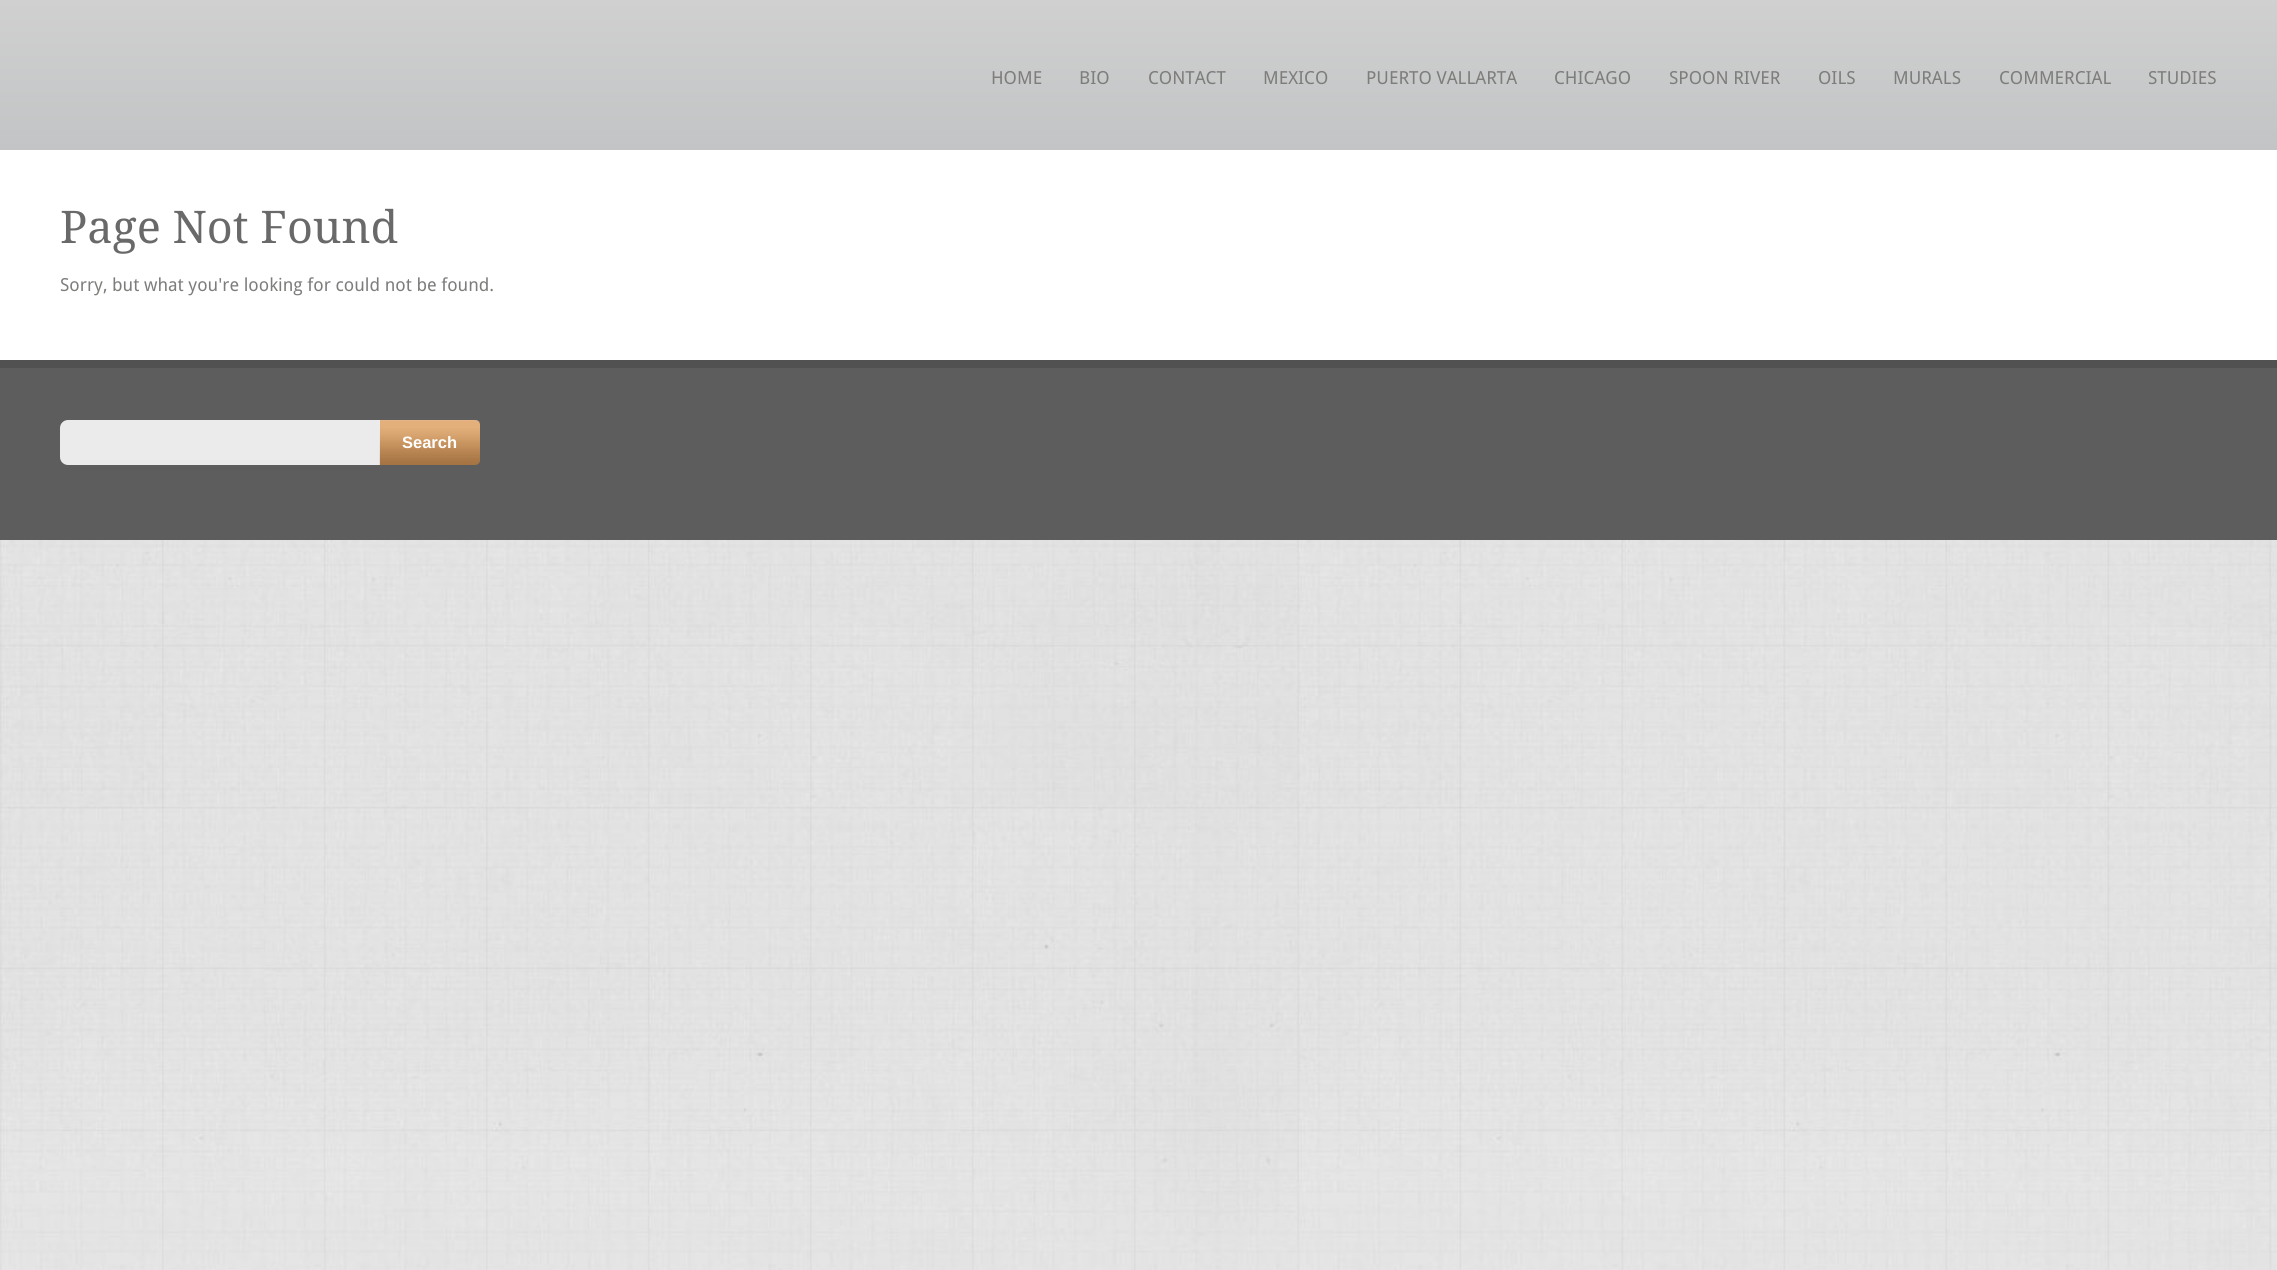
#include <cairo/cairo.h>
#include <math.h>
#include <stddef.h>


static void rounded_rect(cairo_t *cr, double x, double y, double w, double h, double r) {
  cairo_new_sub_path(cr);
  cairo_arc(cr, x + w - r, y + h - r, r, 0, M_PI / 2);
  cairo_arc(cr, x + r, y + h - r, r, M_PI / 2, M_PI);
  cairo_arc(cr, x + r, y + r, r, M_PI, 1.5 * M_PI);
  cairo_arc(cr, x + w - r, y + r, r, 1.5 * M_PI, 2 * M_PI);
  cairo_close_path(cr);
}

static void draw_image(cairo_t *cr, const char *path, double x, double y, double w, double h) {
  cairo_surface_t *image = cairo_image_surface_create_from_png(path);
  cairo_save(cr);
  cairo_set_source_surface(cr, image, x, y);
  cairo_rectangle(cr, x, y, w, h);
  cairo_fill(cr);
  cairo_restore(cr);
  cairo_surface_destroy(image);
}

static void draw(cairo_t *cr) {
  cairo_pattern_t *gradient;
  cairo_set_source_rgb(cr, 1, 1, 1);
  cairo_paint(cr);
  draw_image(cr, "images/1.png", 0, 540, 2277, 730);
  gradient = cairo_pattern_create_linear(1139, 0, 1139, 150);
  cairo_pattern_add_color_stop_rgba(gradient, 0, 208 / 255.0, 208 / 255.0, 208 / 255.0, 1);
  cairo_pattern_add_color_stop_rgba(gradient, 1, 194 / 255.0, 196 / 255.0, 197 / 255.0, 1);
  cairo_set_source(cr, gradient);
  cairo_pattern_destroy(gradient);
  cairo_rectangle(cr, 0, 0, 2277, 150);
  cairo_fill(cr);
  cairo_set_source_rgb(cr, 93 / 255.0, 93 / 255.0, 93 / 255.0);
  cairo_rectangle(cr, 0, 368, 2277, 172);
  cairo_fill(cr);
  cairo_set_source_rgb(cr, 81 / 255.0, 81 / 255.0, 81 / 255.0);
  cairo_rectangle(cr, 0, 360, 2277, 8);
  cairo_fill(cr);
  cairo_set_source_rgb(cr, 235 / 255.0, 235 / 255.0, 235 / 255.0);
  rounded_rect(cr, 60, 420, 420, 45, 8);
  cairo_fill(cr);
  cairo_set_source_rgb(cr, 218 / 255.0, 151 / 255.0, 83 / 255.0);
  cairo_new_path(cr);
  cairo_move_to(cr, 380, 420);
  cairo_line_to(cr, 475, 420);
  cairo_curve_to(cr, 478, 420, 480, 422, 480, 425);
  cairo_line_to(cr, 480, 460);
  cairo_curve_to(cr, 480, 463, 478, 465, 475, 465);
  cairo_line_to(cr, 380, 465);
  cairo_close_path(cr);
  cairo_fill(cr);
  draw_image(cr, "images/2.png", 379, 420, 101, 45);
  cairo_select_font_face(cr, "Droid Sans", CAIRO_FONT_SLANT_NORMAL, CAIRO_FONT_WEIGHT_NORMAL);
  cairo_set_font_size(cr, 18);
  cairo_set_source_rgb(cr, 125 / 255.0, 125 / 255.0, 123 / 255.0);
  cairo_move_to(cr, 991, 84);
  cairo_show_text(cr, "HOME");
  cairo_move_to(cr, 1079, 84);
  cairo_show_text(cr, "BIO");
  cairo_move_to(cr, 1148, 84);
  cairo_show_text(cr, "CONTACT");
  cairo_move_to(cr, 1263, 84);
  cairo_show_text(cr, "MEXICO");
  cairo_move_to(cr, 1366, 84);
  cairo_show_text(cr, "PUERTO VALLARTA");
  cairo_move_to(cr, 1554, 84);
  cairo_show_text(cr, "CHICAGO");
  cairo_move_to(cr, 1669, 84);
  cairo_show_text(cr, "SPOON RIVER");
  cairo_move_to(cr, 1818, 84);
  cairo_show_text(cr, "OILS");
  cairo_move_to(cr, 1893, 84);
  cairo_show_text(cr, "MURALS");
  cairo_move_to(cr, 1999, 84);
  cairo_show_text(cr, "COMMERCIAL");
  cairo_move_to(cr, 2148, 84);
  cairo_show_text(cr, "STUDIES");
  cairo_select_font_face(cr, "Droid Serif", CAIRO_FONT_SLANT_NORMAL, CAIRO_FONT_WEIGHT_NORMAL);
  cairo_set_font_size(cr, 45);
  cairo_set_source_rgb(cr, 105 / 255.0, 105 / 255.0, 105 / 255.0);
  cairo_move_to(cr, 60, 243);
  cairo_show_text(cr, "Page Not Found");
  cairo_select_font_face(cr, "Droid Sans", CAIRO_FONT_SLANT_NORMAL, CAIRO_FONT_WEIGHT_NORMAL);
  cairo_set_font_size(cr, 18);
  cairo_set_source_rgb(cr, 125 / 255.0, 125 / 255.0, 123 / 255.0);
  cairo_move_to(cr, 60, 291);
  cairo_show_text(cr, "Sorry, but what you're looking for could not be found.");
  cairo_select_font_face(cr, "Liberation Sans", CAIRO_FONT_SLANT_NORMAL, CAIRO_FONT_WEIGHT_BOLD);
  cairo_set_font_size(cr, 16.5);
  cairo_set_source_rgb(cr, 1, 1, 1);
  cairo_move_to(cr, 402, 448);
  cairo_show_text(cr, "Search");
}

int main(void) {
  cairo_surface_t *surface = cairo_image_surface_create(CAIRO_FORMAT_RGB24, 2277, 1270);
  cairo_t *cr = cairo_create(surface);
  cairo_font_options_t *options = cairo_font_options_create();
  cairo_font_options_set_hint_metrics(options, CAIRO_HINT_METRICS_OFF);
  cairo_font_options_set_hint_style(options, CAIRO_HINT_STYLE_NONE);
  cairo_set_font_options(cr, options);
  cairo_set_miter_limit(cr, 4);
  draw(cr);
  cairo_surface_write_to_png(surface, "out.png");
  cairo_font_options_destroy(options);
  cairo_destroy(cr);
  cairo_surface_destroy(surface);
  return 0;
}
